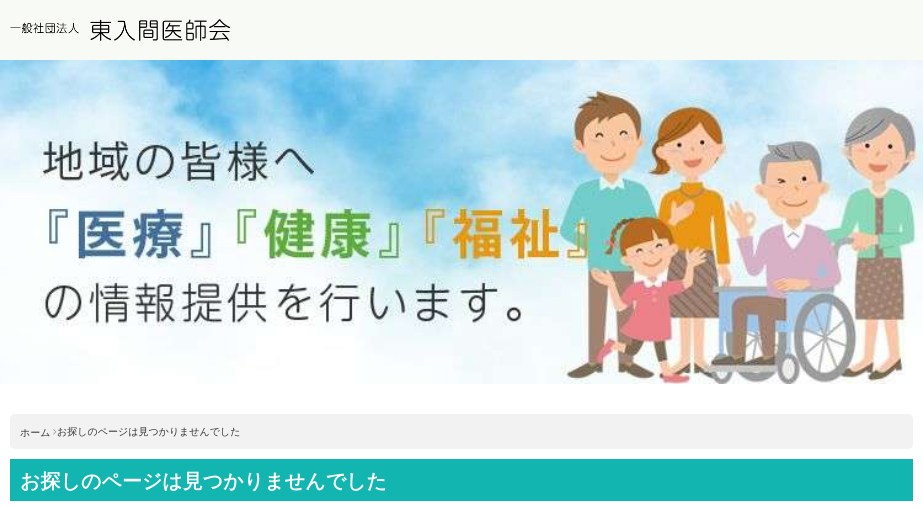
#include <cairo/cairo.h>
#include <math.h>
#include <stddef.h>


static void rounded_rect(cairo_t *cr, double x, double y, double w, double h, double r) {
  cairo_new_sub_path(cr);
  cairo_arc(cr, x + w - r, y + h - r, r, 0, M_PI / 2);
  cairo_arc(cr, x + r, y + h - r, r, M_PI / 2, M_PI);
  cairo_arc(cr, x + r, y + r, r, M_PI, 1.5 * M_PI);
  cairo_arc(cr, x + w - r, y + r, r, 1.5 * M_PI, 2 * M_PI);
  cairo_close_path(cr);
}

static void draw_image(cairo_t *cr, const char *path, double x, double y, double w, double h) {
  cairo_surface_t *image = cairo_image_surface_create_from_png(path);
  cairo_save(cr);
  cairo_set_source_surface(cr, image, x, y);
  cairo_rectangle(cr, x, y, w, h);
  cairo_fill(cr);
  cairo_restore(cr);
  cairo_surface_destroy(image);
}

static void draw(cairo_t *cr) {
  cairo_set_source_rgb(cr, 248 / 255.0, 250 / 255.0, 245 / 255.0);
  cairo_paint(cr);
  draw_image(cr, "images/1.png", 10, 19, 220, 22);
  cairo_set_source_rgb(cr, 1, 1, 1);
  cairo_rectangle(cr, 0, 384, 923, 123);
  cairo_fill(cr);
  draw_image(cr, "images/2.png", 0, 60, 923, 324);
  cairo_set_source_rgb(cr, 242 / 255.0, 242 / 255.0, 242 / 255.0);
  rounded_rect(cr, 10, 414, 903, 35, 5);
  cairo_fill(cr);
  draw_image(cr, "images/3.png", 53, 429, 4, 6);
  cairo_set_source_rgb(cr, 19 / 255.0, 181 / 255.0, 177 / 255.0);
  cairo_rectangle(cr, 10, 459, 903, 42);
  cairo_fill(cr);
  cairo_select_font_face(cr, "WenQuanYi Zen Hei Medium", CAIRO_FONT_SLANT_NORMAL, CAIRO_FONT_WEIGHT_NORMAL);
  cairo_set_font_size(cr, 10);
  cairo_set_source_rgb(cr, 50 / 255.0, 50 / 255.0, 50 / 255.0);
  cairo_move_to(cr, 20, 436);
  cairo_show_text(cr, "ホーム");
  cairo_move_to(cr, 57, 435);
  cairo_show_text(cr, "お探しのページは見つかりませんでした");
  cairo_select_font_face(cr, "WenQuanYi Zen Hei", CAIRO_FONT_SLANT_NORMAL, CAIRO_FONT_WEIGHT_BOLD);
  cairo_set_font_size(cr, 20);
  cairo_set_source_rgb(cr, 1, 1, 1);
  cairo_move_to(cr, 20, 488);
  cairo_show_text(cr, "お探しのページは見つかりませんでした");
}

int main(void) {
  cairo_surface_t *surface = cairo_image_surface_create(CAIRO_FORMAT_RGB24, 923, 507);
  cairo_t *cr = cairo_create(surface);
  cairo_font_options_t *options = cairo_font_options_create();
  cairo_font_options_set_hint_metrics(options, CAIRO_HINT_METRICS_OFF);
  cairo_font_options_set_hint_style(options, CAIRO_HINT_STYLE_NONE);
  cairo_set_font_options(cr, options);
  cairo_set_miter_limit(cr, 4);
  draw(cr);
  cairo_surface_write_to_png(surface, "out.png");
  cairo_font_options_destroy(options);
  cairo_destroy(cr);
  cairo_surface_destroy(surface);
  return 0;
}
